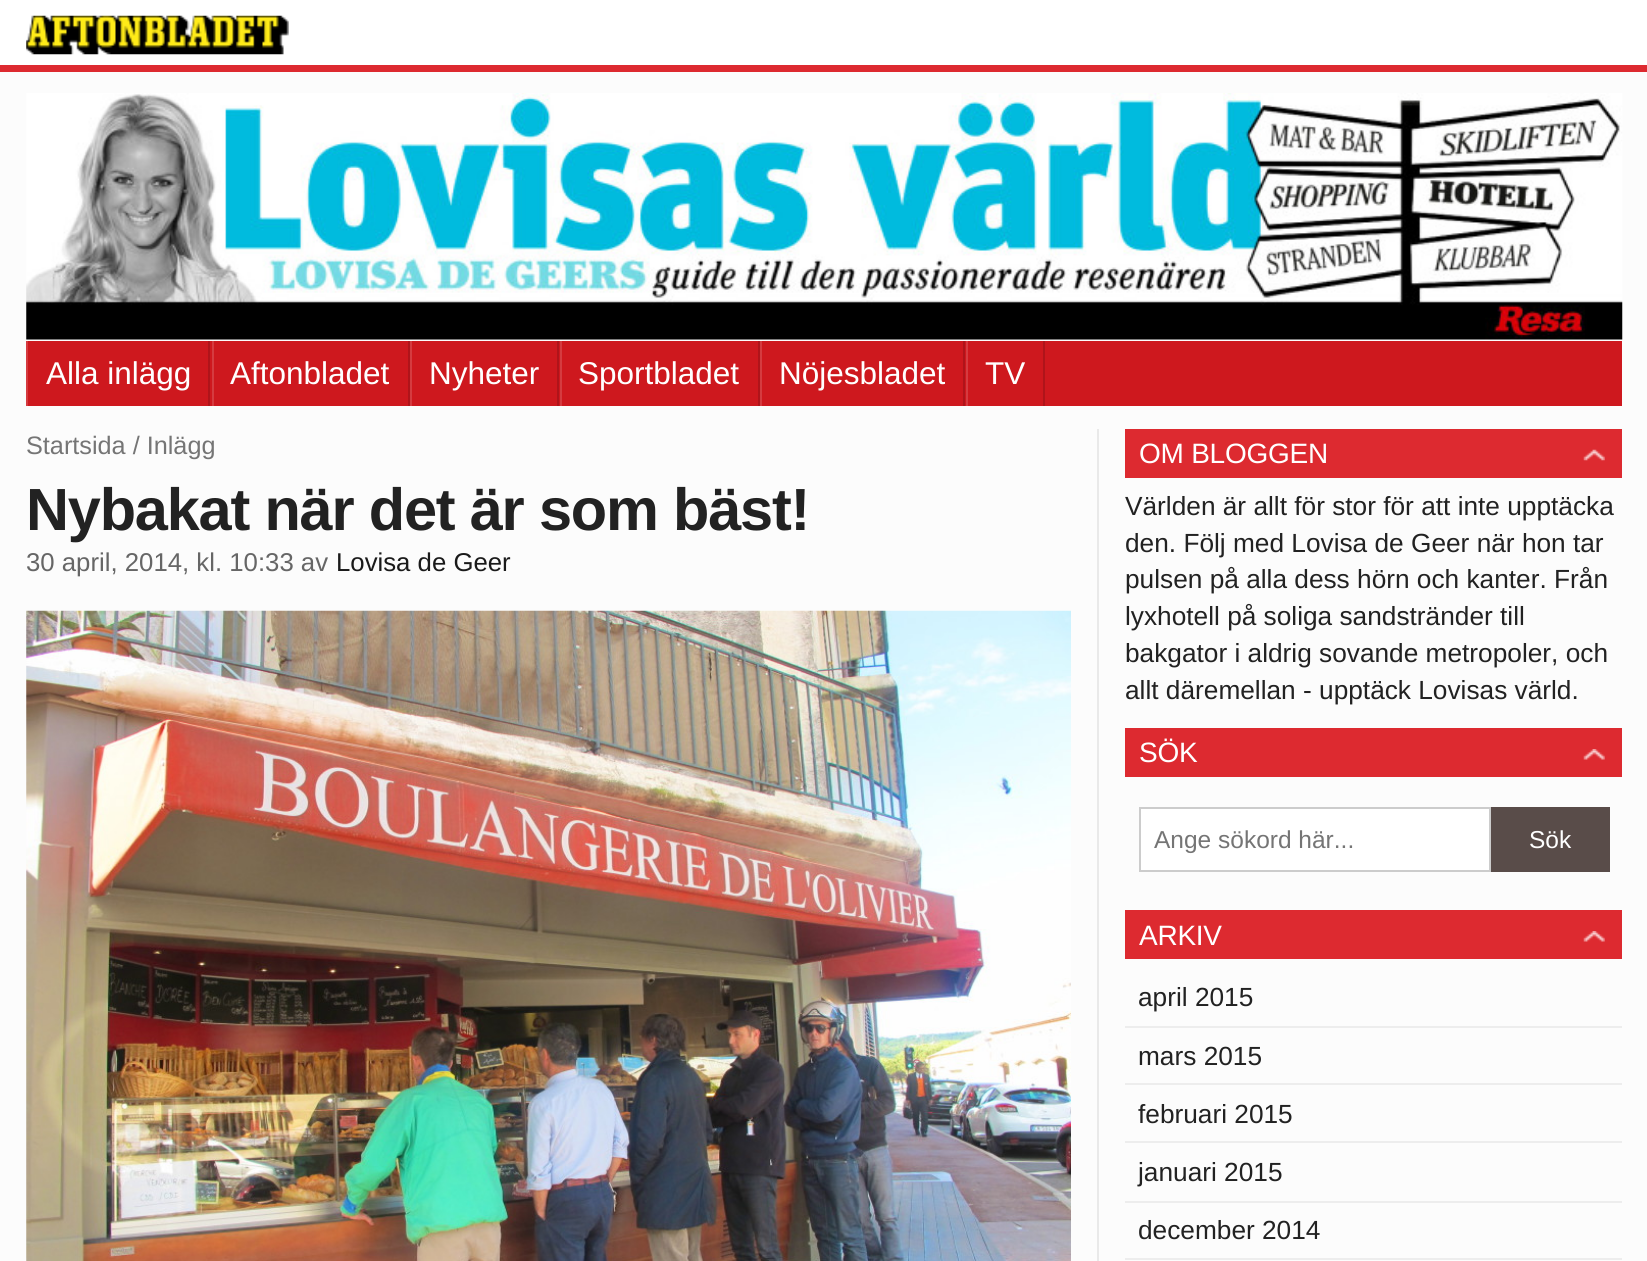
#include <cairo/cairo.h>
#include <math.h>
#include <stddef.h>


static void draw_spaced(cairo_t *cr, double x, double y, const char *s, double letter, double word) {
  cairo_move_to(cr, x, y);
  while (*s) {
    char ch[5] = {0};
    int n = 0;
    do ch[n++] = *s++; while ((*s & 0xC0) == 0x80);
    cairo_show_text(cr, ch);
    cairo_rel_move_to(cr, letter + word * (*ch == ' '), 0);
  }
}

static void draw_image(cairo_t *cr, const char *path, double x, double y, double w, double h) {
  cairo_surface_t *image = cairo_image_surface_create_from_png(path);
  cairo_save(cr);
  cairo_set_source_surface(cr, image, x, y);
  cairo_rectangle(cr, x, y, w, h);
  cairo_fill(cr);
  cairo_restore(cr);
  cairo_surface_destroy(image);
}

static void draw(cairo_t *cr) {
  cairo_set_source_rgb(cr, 252 / 255.0, 252 / 255.0, 252 / 255.0);
  cairo_paint(cr);
  cairo_set_source_rgb(cr, 1, 1, 1);
  cairo_rectangle(cr, 0, 0, 1647, 65);
  cairo_fill(cr);
  cairo_set_source_rgb(cr, 221 / 255.0, 42 / 255.0, 48 / 255.0);
  cairo_rectangle(cr, 0, 65, 1647, 7);
  cairo_fill(cr);
  draw_image(cr, "images/1.png", 26, 15, 263, 40);
  draw_image(cr, "images/2.png", 26, 93, 1597, 247);
  cairo_set_source_rgb(cr, 206 / 255.0, 24 / 255.0, 30 / 255.0);
  cairo_rectangle(cr, 28, 341, 1594, 65);
  cairo_fill(cr);
  cairo_set_source_rgb(cr, 213 / 255.0, 59 / 255.0, 64 / 255.0);
  cairo_rectangle(cr, 26, 341, 2, 65);
  cairo_fill(cr);
  cairo_set_source_rgb(cr, 175 / 255.0, 20 / 255.0, 26 / 255.0);
  cairo_rectangle(cr, 208, 341, 2, 65);
  cairo_fill(cr);
  cairo_set_source_rgb(cr, 213 / 255.0, 59 / 255.0, 64 / 255.0);
  cairo_rectangle(cr, 212, 341, 2, 65);
  cairo_fill(cr);
  cairo_set_source_rgb(cr, 175 / 255.0, 20 / 255.0, 26 / 255.0);
  cairo_rectangle(cr, 408, 341, 2, 65);
  cairo_fill(cr);
  cairo_set_source_rgb(cr, 213 / 255.0, 59 / 255.0, 64 / 255.0);
  cairo_rectangle(cr, 410, 341, 2, 65);
  cairo_fill(cr);
  cairo_set_source_rgb(cr, 175 / 255.0, 20 / 255.0, 26 / 255.0);
  cairo_rectangle(cr, 557, 341, 2, 65);
  cairo_fill(cr);
  cairo_set_source_rgb(cr, 213 / 255.0, 59 / 255.0, 64 / 255.0);
  cairo_rectangle(cr, 560, 341, 2, 65);
  cairo_fill(cr);
  cairo_set_source_rgb(cr, 175 / 255.0, 20 / 255.0, 26 / 255.0);
  cairo_rectangle(cr, 758, 341, 2, 65);
  cairo_fill(cr);
  cairo_set_source_rgb(cr, 213 / 255.0, 59 / 255.0, 64 / 255.0);
  cairo_rectangle(cr, 760, 341, 2, 65);
  cairo_fill(cr);
  cairo_set_source_rgb(cr, 175 / 255.0, 20 / 255.0, 26 / 255.0);
  cairo_rectangle(cr, 963, 341, 2, 65);
  cairo_fill(cr);
  cairo_set_source_rgb(cr, 213 / 255.0, 59 / 255.0, 64 / 255.0);
  cairo_rectangle(cr, 966, 341, 2, 65);
  cairo_fill(cr);
  cairo_set_source_rgb(cr, 175 / 255.0, 20 / 255.0, 26 / 255.0);
  cairo_rectangle(cr, 1043, 341, 2, 65);
  cairo_fill(cr);
  cairo_set_source_rgb(cr, 233 / 255.0, 233 / 255.0, 233 / 255.0);
  cairo_rectangle(cr, 1097, 429, 2, 832);
  cairo_fill(cr);
  draw_image(cr, "images/3.png", 26, 610, 1045, 651);
  cairo_set_source_rgb(cr, 221 / 255.0, 42 / 255.0, 48 / 255.0);
  cairo_rectangle(cr, 1125, 429, 497, 49);
  cairo_fill(cr);
  draw_image(cr, "images/4.png", 1583, 449, 22, 12);
  cairo_rectangle(cr, 1125, 728, 497, 49);
  cairo_fill(cr);
  draw_image(cr, "images/5.png", 1583, 749, 22, 11);
  cairo_set_source_rgb(cr, 1, 1, 1);
  cairo_rectangle(cr, 1140, 808, 350, 63);
  cairo_fill_preserve(cr);
  cairo_set_source_rgb(cr, 204 / 255.0, 204 / 255.0, 204 / 255.0);
  cairo_stroke(cr);
  cairo_set_source_rgb(cr, 89 / 255.0, 76 / 255.0, 73 / 255.0);
  cairo_rectangle(cr, 1491, 807, 119, 65);
  cairo_fill(cr);
  cairo_set_source_rgb(cr, 221 / 255.0, 42 / 255.0, 48 / 255.0);
  cairo_rectangle(cr, 1125, 910, 497, 49);
  cairo_fill(cr);
  draw_image(cr, "images/5.png", 1583, 931, 22, 11);
  cairo_set_source_rgb(cr, 237 / 255.0, 237 / 255.0, 237 / 255.0);
  cairo_rectangle(cr, 1125, 1026, 497, 2);
  cairo_fill(cr);
  cairo_rectangle(cr, 1125, 1083, 497, 2);
  cairo_fill(cr);
  cairo_rectangle(cr, 1125, 1141, 497, 2);
  cairo_fill(cr);
  cairo_rectangle(cr, 1125, 1201, 497, 2);
  cairo_fill(cr);
  cairo_rectangle(cr, 1125, 1258, 497, 2);
  cairo_fill(cr);
  cairo_select_font_face(cr, "Liberation Sans", CAIRO_FONT_SLANT_NORMAL, CAIRO_FONT_WEIGHT_NORMAL);
  cairo_set_font_size(cr, 31.5);
  cairo_set_source_rgb(cr, 1, 1, 1);
  cairo_move_to(cr, 46, 384);
  cairo_show_text(cr, "Alla inlägg");
  cairo_move_to(cr, 230, 384);
  cairo_show_text(cr, "Aftonbladet");
  cairo_move_to(cr, 429, 384);
  cairo_show_text(cr, "Nyheter");
  cairo_move_to(cr, 578, 384);
  cairo_show_text(cr, "Sportbladet");
  cairo_move_to(cr, 779, 384);
  cairo_show_text(cr, "Nöjesbladet");
  cairo_move_to(cr, 985, 384);
  cairo_show_text(cr, "TV");
  cairo_set_font_size(cr, 25.25);
  cairo_set_source_rgb(cr, 117 / 255.0, 117 / 255.0, 117 / 255.0);
  cairo_move_to(cr, 26, 454);
  cairo_show_text(cr, "Startsida / Inlägg");
  cairo_select_font_face(cr, "Liberation Sans", CAIRO_FONT_SLANT_NORMAL, CAIRO_FONT_WEIGHT_BOLD);
  cairo_set_font_size(cr, 59.5);
  cairo_set_source_rgb(cr, 34 / 255.0, 34 / 255.0, 34 / 255.0);
  draw_spaced(cr, 26, 530, "Nybakat när det är som bäst!", -1.2, 0);
  cairo_select_font_face(cr, "Liberation Sans", CAIRO_FONT_SLANT_NORMAL, CAIRO_FONT_WEIGHT_NORMAL);
  cairo_set_font_size(cr, 25.75);
  cairo_set_source_rgb(cr, 102 / 255.0, 102 / 255.0, 102 / 255.0);
  cairo_move_to(cr, 26, 571);
  cairo_show_text(cr, "30 april, 2014, kl. 10:33 av");
  cairo_set_source_rgb(cr, 26 / 255.0, 26 / 255.0, 26 / 255.0);
  cairo_move_to(cr, 336, 571);
  cairo_show_text(cr, "Lovisa de Geer");
  cairo_set_font_size(cr, 28);
  cairo_set_source_rgb(cr, 1, 1, 1);
  draw_spaced(cr, 1139, 463, "OM BLOGGEN", -0.25, 0);
  cairo_set_font_size(cr, 26.25);
  cairo_set_source_rgb(cr, 34 / 255.0, 34 / 255.0, 34 / 255.0);
  cairo_move_to(cr, 1125, 515);
  cairo_show_text(cr, "Världen är allt för stor för att inte upptäcka");
  cairo_move_to(cr, 1125, 552);
  cairo_show_text(cr, "den. Följ med Lovisa de Geer när hon tar");
  cairo_move_to(cr, 1125, 588);
  cairo_show_text(cr, "pulsen på alla dess hörn och kanter. Från");
  cairo_move_to(cr, 1125, 625);
  cairo_show_text(cr, "lyxhotell på soliga sandstränder till");
  cairo_move_to(cr, 1125, 662);
  cairo_show_text(cr, "bakgator i aldrig sovande metropoler, och");
  cairo_move_to(cr, 1125, 699);
  cairo_show_text(cr, "allt däremellan - upptäck Lovisas värld.");
  cairo_set_font_size(cr, 28);
  cairo_set_source_rgb(cr, 1, 1, 1);
  draw_spaced(cr, 1139, 762, "SÖK", -0.25, 0);
  cairo_set_font_size(cr, 24.5);
  cairo_set_source_rgb(cr, 117 / 255.0, 117 / 255.0, 117 / 255.0);
  cairo_move_to(cr, 1154, 848);
  cairo_show_text(cr, "Ange sökord här...");
  cairo_set_source_rgb(cr, 1, 1, 1);
  cairo_move_to(cr, 1529, 848);
  cairo_show_text(cr, "Sök");
  cairo_set_font_size(cr, 28);
  draw_spaced(cr, 1139, 945, "ARKIV", -0.25, 0);
  cairo_set_font_size(cr, 26.25);
  cairo_set_source_rgb(cr, 34 / 255.0, 34 / 255.0, 34 / 255.0);
  cairo_move_to(cr, 1138, 1006);
  cairo_show_text(cr, "april 2015");
  cairo_move_to(cr, 1138, 1065);
  cairo_show_text(cr, "mars 2015");
  cairo_move_to(cr, 1138, 1123);
  cairo_show_text(cr, "februari 2015");
  cairo_move_to(cr, 1138, 1181);
  cairo_show_text(cr, "januari 2015");
  cairo_move_to(cr, 1138, 1239);
  cairo_show_text(cr, "december 2014");
}

int main(void) {
  cairo_surface_t *surface = cairo_image_surface_create(CAIRO_FORMAT_RGB24, 1647, 1261);
  cairo_t *cr = cairo_create(surface);
  cairo_font_options_t *options = cairo_font_options_create();
  cairo_font_options_set_hint_metrics(options, CAIRO_HINT_METRICS_OFF);
  cairo_font_options_set_hint_style(options, CAIRO_HINT_STYLE_NONE);
  cairo_set_font_options(cr, options);
  cairo_set_miter_limit(cr, 4);
  draw(cr);
  cairo_surface_write_to_png(surface, "out.png");
  cairo_font_options_destroy(options);
  cairo_destroy(cr);
  cairo_surface_destroy(surface);
  return 0;
}
